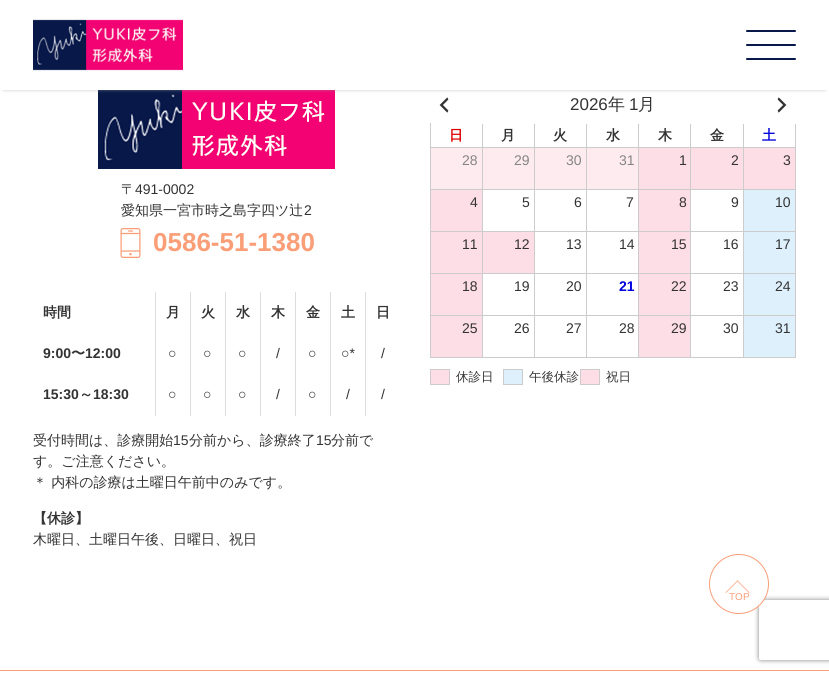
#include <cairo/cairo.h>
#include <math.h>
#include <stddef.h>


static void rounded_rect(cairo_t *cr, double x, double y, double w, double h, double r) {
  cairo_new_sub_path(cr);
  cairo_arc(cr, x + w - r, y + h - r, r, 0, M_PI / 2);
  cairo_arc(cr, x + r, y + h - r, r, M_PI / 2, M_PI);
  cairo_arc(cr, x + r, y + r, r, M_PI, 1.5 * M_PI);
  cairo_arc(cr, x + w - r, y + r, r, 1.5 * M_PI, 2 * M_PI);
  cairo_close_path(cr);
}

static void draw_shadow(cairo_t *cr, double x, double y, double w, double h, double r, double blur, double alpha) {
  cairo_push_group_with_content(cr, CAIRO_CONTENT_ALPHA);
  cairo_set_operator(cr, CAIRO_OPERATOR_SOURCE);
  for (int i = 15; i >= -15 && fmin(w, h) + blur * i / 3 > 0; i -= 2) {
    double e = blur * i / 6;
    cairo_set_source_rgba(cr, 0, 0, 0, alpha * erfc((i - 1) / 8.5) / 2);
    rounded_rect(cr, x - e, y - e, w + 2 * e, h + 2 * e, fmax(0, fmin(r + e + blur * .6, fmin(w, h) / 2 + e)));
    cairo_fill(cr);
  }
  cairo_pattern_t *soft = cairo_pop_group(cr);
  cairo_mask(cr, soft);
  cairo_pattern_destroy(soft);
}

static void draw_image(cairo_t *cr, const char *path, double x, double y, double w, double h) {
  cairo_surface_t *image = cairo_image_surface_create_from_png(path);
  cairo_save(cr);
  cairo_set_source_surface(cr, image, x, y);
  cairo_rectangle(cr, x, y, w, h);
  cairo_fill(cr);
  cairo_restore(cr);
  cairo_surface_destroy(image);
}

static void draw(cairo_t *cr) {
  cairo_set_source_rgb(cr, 1, 1, 1);
  cairo_paint(cr);
  draw_image(cr, "images/2.png", 98, 90, 237, 79);
  cairo_set_source_rgb(cr, 158 / 255.0, 158 / 255.0, 158 / 255.0);
  draw_shadow(cr, 4, 7, 821, 82, 0, 2, 1);
  cairo_set_source_rgb(cr, 1, 1, 1);
  cairo_rectangle(cr, 0, 3, 829, 87);
  cairo_fill(cr);
  draw_image(cr, "images/1.png", 33, 19, 150, 52);
  cairo_set_source_rgb(cr, 7 / 255.0, 24 / 255.0, 73 / 255.0);
  rounded_rect(cr, 746, 30, 50, 2, 1);
  cairo_fill(cr);
  rounded_rect(cr, 746, 44, 50, 2, 1);
  cairo_fill(cr);
  rounded_rect(cr, 746, 58, 50, 2, 1);
  cairo_fill(cr);
  draw_image(cr, "images/3.png", 120, 228, 21, 30);
  cairo_set_source_rgb(cr, 221 / 255.0, 221 / 255.0, 221 / 255.0);
  cairo_rectangle(cr, 155, 292, 1, 124);
  cairo_fill(cr);
  cairo_rectangle(cr, 190, 292, 1, 124);
  cairo_fill(cr);
  cairo_rectangle(cr, 225, 292, 1, 124);
  cairo_fill(cr);
  cairo_rectangle(cr, 260, 292, 1, 124);
  cairo_fill(cr);
  cairo_rectangle(cr, 295, 292, 1, 124);
  cairo_fill(cr);
  cairo_rectangle(cr, 330, 292, 1, 124);
  cairo_fill(cr);
  cairo_rectangle(cr, 365, 292, 1, 124);
  cairo_fill(cr);
  cairo_set_source_rgb(cr, 204 / 255.0, 204 / 255.0, 204 / 255.0);
  cairo_rectangle(cr, 430, 357, 366, 1);
  cairo_fill(cr);
  cairo_rectangle(cr, 430, 123, 1, 235);
  cairo_fill(cr);
  draw_image(cr, "images/4.png", 439, 97, 10, 16);
  draw_image(cr, "images/5.png", 777, 97, 10, 16);
  cairo_rectangle(cr, 482, 124, 1, 23);
  cairo_fill(cr);
  cairo_rectangle(cr, 534, 124, 1, 23);
  cairo_fill(cr);
  cairo_rectangle(cr, 586, 124, 1, 23);
  cairo_fill(cr);
  cairo_rectangle(cr, 638, 124, 1, 23);
  cairo_fill(cr);
  cairo_rectangle(cr, 690, 124, 1, 23);
  cairo_fill(cr);
  cairo_rectangle(cr, 743, 124, 1, 23);
  cairo_fill(cr);
  cairo_rectangle(cr, 795, 124, 1, 23);
  cairo_fill(cr);
  cairo_rectangle(cr, 431, 147, 365, 1);
  cairo_fill(cr);
  cairo_rectangle(cr, 482, 147, 1, 42);
  cairo_fill(cr);
  cairo_set_source_rgb(cr, 254 / 255.0, 235 / 255.0, 240 / 255.0);
  cairo_rectangle(cr, 431, 148, 51, 41);
  cairo_fill(cr);
  cairo_set_source_rgb(cr, 204 / 255.0, 204 / 255.0, 204 / 255.0);
  cairo_rectangle(cr, 534, 147, 1, 42);
  cairo_fill(cr);
  cairo_set_source_rgb(cr, 254 / 255.0, 235 / 255.0, 240 / 255.0);
  cairo_rectangle(cr, 483, 148, 51, 41);
  cairo_fill(cr);
  cairo_set_source_rgb(cr, 204 / 255.0, 204 / 255.0, 204 / 255.0);
  cairo_rectangle(cr, 586, 147, 1, 42);
  cairo_fill(cr);
  cairo_set_source_rgb(cr, 254 / 255.0, 235 / 255.0, 240 / 255.0);
  cairo_rectangle(cr, 535, 148, 51, 41);
  cairo_fill(cr);
  cairo_set_source_rgb(cr, 204 / 255.0, 204 / 255.0, 204 / 255.0);
  cairo_rectangle(cr, 638, 147, 1, 42);
  cairo_fill(cr);
  cairo_set_source_rgb(cr, 254 / 255.0, 235 / 255.0, 240 / 255.0);
  cairo_rectangle(cr, 587, 148, 51, 41);
  cairo_fill(cr);
  cairo_set_source_rgb(cr, 204 / 255.0, 204 / 255.0, 204 / 255.0);
  cairo_rectangle(cr, 690, 147, 1, 42);
  cairo_fill(cr);
  cairo_set_source_rgb(cr, 253 / 255.0, 221 / 255.0, 230 / 255.0);
  cairo_rectangle(cr, 639, 148, 51, 41);
  cairo_fill(cr);
  cairo_set_source_rgb(cr, 204 / 255.0, 204 / 255.0, 204 / 255.0);
  cairo_rectangle(cr, 743, 147, 1, 42);
  cairo_fill(cr);
  cairo_set_source_rgb(cr, 253 / 255.0, 221 / 255.0, 230 / 255.0);
  cairo_rectangle(cr, 691, 148, 52, 41);
  cairo_fill(cr);
  cairo_set_source_rgb(cr, 204 / 255.0, 204 / 255.0, 204 / 255.0);
  cairo_rectangle(cr, 795, 147, 1, 42);
  cairo_fill(cr);
  cairo_set_source_rgb(cr, 253 / 255.0, 221 / 255.0, 230 / 255.0);
  cairo_rectangle(cr, 744, 148, 51, 41);
  cairo_fill(cr);
  cairo_set_source_rgb(cr, 204 / 255.0, 204 / 255.0, 204 / 255.0);
  cairo_rectangle(cr, 431, 189, 365, 1);
  cairo_fill(cr);
  cairo_rectangle(cr, 482, 189, 1, 42);
  cairo_fill(cr);
  cairo_set_source_rgb(cr, 253 / 255.0, 221 / 255.0, 230 / 255.0);
  cairo_rectangle(cr, 431, 190, 51, 41);
  cairo_fill(cr);
  cairo_set_source_rgb(cr, 204 / 255.0, 204 / 255.0, 204 / 255.0);
  cairo_rectangle(cr, 534, 189, 1, 42);
  cairo_fill(cr);
  cairo_rectangle(cr, 586, 189, 1, 42);
  cairo_fill(cr);
  cairo_rectangle(cr, 638, 189, 1, 42);
  cairo_fill(cr);
  cairo_rectangle(cr, 690, 189, 1, 42);
  cairo_fill(cr);
  cairo_set_source_rgb(cr, 253 / 255.0, 221 / 255.0, 230 / 255.0);
  cairo_rectangle(cr, 639, 190, 51, 41);
  cairo_fill(cr);
  cairo_set_source_rgb(cr, 204 / 255.0, 204 / 255.0, 204 / 255.0);
  cairo_rectangle(cr, 743, 189, 1, 42);
  cairo_fill(cr);
  cairo_rectangle(cr, 795, 189, 1, 42);
  cairo_fill(cr);
  cairo_set_source_rgb(cr, 222 / 255.0, 240 / 255.0, 252 / 255.0);
  cairo_rectangle(cr, 744, 190, 51, 41);
  cairo_fill(cr);
  cairo_set_source_rgb(cr, 204 / 255.0, 204 / 255.0, 204 / 255.0);
  cairo_rectangle(cr, 431, 231, 365, 1);
  cairo_fill(cr);
  cairo_rectangle(cr, 482, 231, 1, 42);
  cairo_fill(cr);
  cairo_set_source_rgb(cr, 253 / 255.0, 221 / 255.0, 230 / 255.0);
  cairo_rectangle(cr, 431, 232, 51, 41);
  cairo_fill(cr);
  cairo_set_source_rgb(cr, 204 / 255.0, 204 / 255.0, 204 / 255.0);
  cairo_rectangle(cr, 534, 231, 1, 42);
  cairo_fill(cr);
  cairo_set_source_rgb(cr, 253 / 255.0, 221 / 255.0, 230 / 255.0);
  cairo_rectangle(cr, 483, 232, 51, 41);
  cairo_fill(cr);
  cairo_set_source_rgb(cr, 204 / 255.0, 204 / 255.0, 204 / 255.0);
  cairo_rectangle(cr, 586, 231, 1, 42);
  cairo_fill(cr);
  cairo_rectangle(cr, 638, 231, 1, 42);
  cairo_fill(cr);
  cairo_rectangle(cr, 690, 231, 1, 42);
  cairo_fill(cr);
  cairo_set_source_rgb(cr, 253 / 255.0, 221 / 255.0, 230 / 255.0);
  cairo_rectangle(cr, 639, 232, 51, 41);
  cairo_fill(cr);
  cairo_set_source_rgb(cr, 204 / 255.0, 204 / 255.0, 204 / 255.0);
  cairo_rectangle(cr, 743, 231, 1, 42);
  cairo_fill(cr);
  cairo_rectangle(cr, 795, 231, 1, 42);
  cairo_fill(cr);
  cairo_set_source_rgb(cr, 222 / 255.0, 240 / 255.0, 252 / 255.0);
  cairo_rectangle(cr, 744, 232, 51, 41);
  cairo_fill(cr);
  cairo_set_source_rgb(cr, 204 / 255.0, 204 / 255.0, 204 / 255.0);
  cairo_rectangle(cr, 431, 273, 365, 1);
  cairo_fill(cr);
  cairo_rectangle(cr, 482, 273, 1, 42);
  cairo_fill(cr);
  cairo_set_source_rgb(cr, 253 / 255.0, 221 / 255.0, 230 / 255.0);
  cairo_rectangle(cr, 431, 274, 51, 41);
  cairo_fill(cr);
  cairo_set_source_rgb(cr, 204 / 255.0, 204 / 255.0, 204 / 255.0);
  cairo_rectangle(cr, 534, 273, 1, 42);
  cairo_fill(cr);
  cairo_rectangle(cr, 586, 273, 1, 42);
  cairo_fill(cr);
  cairo_rectangle(cr, 638, 273, 1, 42);
  cairo_fill(cr);
  cairo_rectangle(cr, 690, 273, 1, 42);
  cairo_fill(cr);
  cairo_set_source_rgb(cr, 253 / 255.0, 221 / 255.0, 230 / 255.0);
  cairo_rectangle(cr, 639, 274, 51, 41);
  cairo_fill(cr);
  cairo_set_source_rgb(cr, 204 / 255.0, 204 / 255.0, 204 / 255.0);
  cairo_rectangle(cr, 743, 273, 1, 42);
  cairo_fill(cr);
  cairo_rectangle(cr, 795, 273, 1, 42);
  cairo_fill(cr);
  cairo_set_source_rgb(cr, 222 / 255.0, 240 / 255.0, 252 / 255.0);
  cairo_rectangle(cr, 744, 274, 51, 41);
  cairo_fill(cr);
  cairo_set_source_rgb(cr, 204 / 255.0, 204 / 255.0, 204 / 255.0);
  cairo_rectangle(cr, 431, 315, 365, 1);
  cairo_fill(cr);
  cairo_rectangle(cr, 482, 315, 1, 42);
  cairo_fill(cr);
  cairo_set_source_rgb(cr, 253 / 255.0, 221 / 255.0, 230 / 255.0);
  cairo_rectangle(cr, 431, 316, 51, 41);
  cairo_fill(cr);
  cairo_set_source_rgb(cr, 204 / 255.0, 204 / 255.0, 204 / 255.0);
  cairo_rectangle(cr, 534, 315, 1, 42);
  cairo_fill(cr);
  cairo_rectangle(cr, 586, 315, 1, 42);
  cairo_fill(cr);
  cairo_rectangle(cr, 638, 315, 1, 42);
  cairo_fill(cr);
  cairo_rectangle(cr, 690, 315, 1, 42);
  cairo_fill(cr);
  cairo_set_source_rgb(cr, 253 / 255.0, 221 / 255.0, 230 / 255.0);
  cairo_rectangle(cr, 639, 316, 51, 41);
  cairo_fill(cr);
  cairo_set_source_rgb(cr, 204 / 255.0, 204 / 255.0, 204 / 255.0);
  cairo_rectangle(cr, 743, 315, 1, 42);
  cairo_fill(cr);
  cairo_rectangle(cr, 795, 315, 1, 42);
  cairo_fill(cr);
  cairo_set_source_rgb(cr, 222 / 255.0, 240 / 255.0, 252 / 255.0);
  cairo_rectangle(cr, 744, 316, 51, 41);
  cairo_fill(cr);
  cairo_set_source_rgb(cr, 253 / 255.0, 221 / 255.0, 230 / 255.0);
  cairo_rectangle(cr, 430.5, 369.5, 19, 15);
  cairo_fill_preserve(cr);
  cairo_set_source_rgb(cr, 204 / 255.0, 204 / 255.0, 204 / 255.0);
  cairo_set_line_width(cr, 1);
  cairo_stroke(cr);
  cairo_set_source_rgb(cr, 222 / 255.0, 240 / 255.0, 252 / 255.0);
  cairo_rectangle(cr, 503.5, 369.5, 19, 15);
  cairo_fill_preserve(cr);
  cairo_set_source_rgb(cr, 204 / 255.0, 204 / 255.0, 204 / 255.0);
  cairo_stroke(cr);
  cairo_set_source_rgb(cr, 253 / 255.0, 221 / 255.0, 230 / 255.0);
  cairo_rectangle(cr, 580.5, 369.5, 19, 15);
  cairo_fill_preserve(cr);
  cairo_set_source_rgb(cr, 204 / 255.0, 204 / 255.0, 204 / 255.0);
  cairo_stroke(cr);
  cairo_set_source_rgb(cr, 250 / 255.0, 158 / 255.0, 120 / 255.0);
  cairo_rectangle(cr, 0, 670, 829, 1);
  cairo_fill(cr);
  cairo_save(cr);
  cairo_set_fill_rule(cr, CAIRO_FILL_RULE_EVEN_ODD);
  cairo_new_path(cr);
  cairo_move_to(cr, 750, 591);
  cairo_line_to(cr, 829, 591);
  cairo_line_to(cr, 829, 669);
  cairo_line_to(cr, 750, 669);
  cairo_close_path(cr);
  cairo_move_to(cr, 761, 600);
  cairo_line_to(cr, 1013, 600);
  cairo_curve_to(cr, 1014, 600, 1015, 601, 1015, 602);
  cairo_line_to(cr, 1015, 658);
  cairo_curve_to(cr, 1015, 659, 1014, 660, 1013, 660);
  cairo_line_to(cr, 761, 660);
  cairo_curve_to(cr, 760, 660, 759, 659, 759, 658);
  cairo_line_to(cr, 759, 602);
  cairo_curve_to(cr, 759, 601, 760, 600, 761, 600);
  cairo_close_path(cr);
  cairo_clip(cr);
  cairo_set_source_rgb(cr, 128 / 255.0, 128 / 255.0, 128 / 255.0);
  draw_shadow(cr, 759, 600, 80, 60, 2, 2.5, 1);
  cairo_restore(cr);
  cairo_set_source_rgba(cr, 1, 1, 1, 0.9);
  cairo_arc(cr, 739, 584, 29.5, 0, 2 * M_PI);
  cairo_fill_preserve(cr);
  cairo_set_source_rgb(cr, 250 / 255.0, 158 / 255.0, 120 / 255.0);
  cairo_stroke(cr);
  cairo_new_path(cr);
  cairo_move_to(cr, 725.5, 592.5);
  cairo_line_to(cr, 737.5, 580.5);
  cairo_line_to(cr, 738, 581);
  cairo_line_to(cr, 726, 593);
  cairo_close_path(cr);
  cairo_fill(cr);
  cairo_new_path(cr);
  cairo_move_to(cr, 737, 581);
  cairo_line_to(cr, 737.5, 580.5);
  cairo_line_to(cr, 749.5, 592.5);
  cairo_line_to(cr, 749, 593);
  cairo_close_path(cr);
  cairo_fill(cr);
  cairo_select_font_face(cr, "WenQuanYi Zen Hei Medium", CAIRO_FONT_SLANT_NORMAL, CAIRO_FONT_WEIGHT_NORMAL);
  cairo_set_font_size(cr, 14);
  cairo_set_source_rgb(cr, 51 / 255.0, 51 / 255.0, 51 / 255.0);
  cairo_move_to(cr, 121, 194);
  cairo_show_text(cr, "〒");
  cairo_select_font_face(cr, "Liberation Sans", CAIRO_FONT_SLANT_NORMAL, CAIRO_FONT_WEIGHT_NORMAL);
  cairo_move_to(cr, 135, 194);
  cairo_show_text(cr, "491-0002");
  cairo_select_font_face(cr, "WenQuanYi Zen Hei Medium", CAIRO_FONT_SLANT_NORMAL, CAIRO_FONT_WEIGHT_NORMAL);
  cairo_move_to(cr, 121, 215);
  cairo_show_text(cr, "愛知県一宮市時之島字四ツ辻");
  cairo_select_font_face(cr, "Liberation Sans", CAIRO_FONT_SLANT_NORMAL, CAIRO_FONT_WEIGHT_NORMAL);
  cairo_move_to(cr, 304, 215);
  cairo_show_text(cr, "2");
  cairo_select_font_face(cr, "Liberation Sans", CAIRO_FONT_SLANT_NORMAL, CAIRO_FONT_WEIGHT_BOLD);
  cairo_set_font_size(cr, 26);
  cairo_set_source_rgb(cr, 250 / 255.0, 158 / 255.0, 120 / 255.0);
  cairo_move_to(cr, 153, 251);
  cairo_show_text(cr, "0586-51-1380");
  cairo_select_font_face(cr, "WenQuanYi Zen Hei", CAIRO_FONT_SLANT_NORMAL, CAIRO_FONT_WEIGHT_BOLD);
  cairo_set_font_size(cr, 14);
  cairo_set_source_rgb(cr, 51 / 255.0, 51 / 255.0, 51 / 255.0);
  cairo_move_to(cr, 43, 317);
  cairo_show_text(cr, "時間");
  cairo_move_to(cr, 166, 317);
  cairo_show_text(cr, "月");
  cairo_move_to(cr, 201, 317);
  cairo_show_text(cr, "火");
  cairo_move_to(cr, 236, 317);
  cairo_show_text(cr, "水");
  cairo_move_to(cr, 271, 317);
  cairo_show_text(cr, "木");
  cairo_move_to(cr, 306, 317);
  cairo_show_text(cr, "金");
  cairo_move_to(cr, 341, 317);
  cairo_show_text(cr, "土");
  cairo_move_to(cr, 376, 317);
  cairo_show_text(cr, "日");
  cairo_select_font_face(cr, "Liberation Sans", CAIRO_FONT_SLANT_NORMAL, CAIRO_FONT_WEIGHT_BOLD);
  cairo_move_to(cr, 43, 358);
  cairo_show_text(cr, "9:00");
  cairo_select_font_face(cr, "WenQuanYi Zen Hei", CAIRO_FONT_SLANT_NORMAL, CAIRO_FONT_WEIGHT_BOLD);
  cairo_move_to(cr, 71, 358);
  cairo_show_text(cr, "〜");
  cairo_select_font_face(cr, "Liberation Sans", CAIRO_FONT_SLANT_NORMAL, CAIRO_FONT_WEIGHT_BOLD);
  cairo_move_to(cr, 85, 358);
  cairo_show_text(cr, "12:00");
  cairo_select_font_face(cr, "Liberation Sans", CAIRO_FONT_SLANT_NORMAL, CAIRO_FONT_WEIGHT_NORMAL);
  cairo_move_to(cr, 168, 358);
  cairo_show_text(cr, "○");
  cairo_move_to(cr, 203, 358);
  cairo_show_text(cr, "○");
  cairo_move_to(cr, 238, 358);
  cairo_show_text(cr, "○");
  cairo_move_to(cr, 276, 358);
  cairo_show_text(cr, "/");
  cairo_move_to(cr, 308, 358);
  cairo_show_text(cr, "○");
  cairo_move_to(cr, 341, 358);
  cairo_show_text(cr, "○*");
  cairo_move_to(cr, 381, 358);
  cairo_show_text(cr, "/");
  cairo_select_font_face(cr, "Liberation Sans", CAIRO_FONT_SLANT_NORMAL, CAIRO_FONT_WEIGHT_BOLD);
  cairo_move_to(cr, 43, 399);
  cairo_show_text(cr, "15:30");
  cairo_select_font_face(cr, "WenQuanYi Zen Hei", CAIRO_FONT_SLANT_NORMAL, CAIRO_FONT_WEIGHT_BOLD);
  cairo_move_to(cr, 79, 399);
  cairo_show_text(cr, "～");
  cairo_select_font_face(cr, "Liberation Sans", CAIRO_FONT_SLANT_NORMAL, CAIRO_FONT_WEIGHT_BOLD);
  cairo_move_to(cr, 93, 399);
  cairo_show_text(cr, "18:30");
  cairo_select_font_face(cr, "Liberation Sans", CAIRO_FONT_SLANT_NORMAL, CAIRO_FONT_WEIGHT_NORMAL);
  cairo_move_to(cr, 168, 399);
  cairo_show_text(cr, "○");
  cairo_move_to(cr, 203, 399);
  cairo_show_text(cr, "○");
  cairo_move_to(cr, 238, 399);
  cairo_show_text(cr, "○");
  cairo_move_to(cr, 276, 399);
  cairo_show_text(cr, "/");
  cairo_move_to(cr, 308, 399);
  cairo_show_text(cr, "○");
  cairo_move_to(cr, 346, 399);
  cairo_show_text(cr, "/");
  cairo_move_to(cr, 381, 399);
  cairo_show_text(cr, "/");
  cairo_select_font_face(cr, "WenQuanYi Zen Hei Medium", CAIRO_FONT_SLANT_NORMAL, CAIRO_FONT_WEIGHT_NORMAL);
  cairo_move_to(cr, 33, 445);
  cairo_show_text(cr, "受付時間は、診療開始");
  cairo_select_font_face(cr, "Liberation Sans", CAIRO_FONT_SLANT_NORMAL, CAIRO_FONT_WEIGHT_NORMAL);
  cairo_move_to(cr, 173, 445);
  cairo_show_text(cr, "15");
  cairo_select_font_face(cr, "WenQuanYi Zen Hei Medium", CAIRO_FONT_SLANT_NORMAL, CAIRO_FONT_WEIGHT_NORMAL);
  cairo_move_to(cr, 189, 445);
  cairo_show_text(cr, "分前から、診療終了");
  cairo_select_font_face(cr, "Liberation Sans", CAIRO_FONT_SLANT_NORMAL, CAIRO_FONT_WEIGHT_NORMAL);
  cairo_move_to(cr, 316, 445);
  cairo_show_text(cr, "15");
  cairo_select_font_face(cr, "WenQuanYi Zen Hei Medium", CAIRO_FONT_SLANT_NORMAL, CAIRO_FONT_WEIGHT_NORMAL);
  cairo_move_to(cr, 331, 445);
  cairo_show_text(cr, "分前で");
  cairo_move_to(cr, 33, 466);
  cairo_show_text(cr, "す。ご注意ください。");
  cairo_move_to(cr, 33, 487);
  cairo_show_text(cr, "＊ 内科の診療は土曜日午前中のみです。");
  cairo_select_font_face(cr, "WenQuanYi Zen Hei", CAIRO_FONT_SLANT_NORMAL, CAIRO_FONT_WEIGHT_BOLD);
  cairo_move_to(cr, 33, 523);
  cairo_show_text(cr, "【休診】");
  cairo_select_font_face(cr, "WenQuanYi Zen Hei Medium", CAIRO_FONT_SLANT_NORMAL, CAIRO_FONT_WEIGHT_NORMAL);
  cairo_move_to(cr, 33, 544);
  cairo_show_text(cr, "木曜日、土曜日午後、日曜日、祝日");
  cairo_select_font_face(cr, "Liberation Sans", CAIRO_FONT_SLANT_NORMAL, CAIRO_FONT_WEIGHT_NORMAL);
  cairo_set_font_size(cr, 17);
  cairo_move_to(cr, 570, 110);
  cairo_show_text(cr, "2026");
  cairo_select_font_face(cr, "WenQuanYi Zen Hei Medium", CAIRO_FONT_SLANT_NORMAL, CAIRO_FONT_WEIGHT_NORMAL);
  cairo_move_to(cr, 608, 110);
  cairo_show_text(cr, "年");
  cairo_select_font_face(cr, "Liberation Sans", CAIRO_FONT_SLANT_NORMAL, CAIRO_FONT_WEIGHT_NORMAL);
  cairo_move_to(cr, 629, 110);
  cairo_show_text(cr, "1");
  cairo_select_font_face(cr, "WenQuanYi Zen Hei Medium", CAIRO_FONT_SLANT_NORMAL, CAIRO_FONT_WEIGHT_NORMAL);
  cairo_move_to(cr, 638, 110);
  cairo_show_text(cr, "月");
  cairo_select_font_face(cr, "WenQuanYi Zen Hei", CAIRO_FONT_SLANT_NORMAL, CAIRO_FONT_WEIGHT_BOLD);
  cairo_set_font_size(cr, 14);
  cairo_set_source_rgb(cr, 221 / 255.0, 0, 0);
  cairo_move_to(cr, 449, 140);
  cairo_show_text(cr, "日");
  cairo_set_source_rgb(cr, 51 / 255.0, 51 / 255.0, 51 / 255.0);
  cairo_move_to(cr, 501, 140);
  cairo_show_text(cr, "月");
  cairo_move_to(cr, 553, 140);
  cairo_show_text(cr, "火");
  cairo_move_to(cr, 606, 140);
  cairo_show_text(cr, "水");
  cairo_move_to(cr, 658, 140);
  cairo_show_text(cr, "木");
  cairo_move_to(cr, 710, 140);
  cairo_show_text(cr, "金");
  cairo_set_source_rgb(cr, 0, 0, 221 / 255.0);
  cairo_move_to(cr, 762, 140);
  cairo_show_text(cr, "土");
  cairo_select_font_face(cr, "Liberation Sans", CAIRO_FONT_SLANT_NORMAL, CAIRO_FONT_WEIGHT_NORMAL);
  cairo_set_source_rgb(cr, 133 / 255.0, 133 / 255.0, 133 / 255.0);
  cairo_move_to(cr, 462, 165);
  cairo_show_text(cr, "28");
  cairo_move_to(cr, 514, 165);
  cairo_show_text(cr, "29");
  cairo_move_to(cr, 566, 165);
  cairo_show_text(cr, "30");
  cairo_move_to(cr, 619, 165);
  cairo_show_text(cr, "31");
  cairo_set_source_rgb(cr, 51 / 255.0, 51 / 255.0, 51 / 255.0);
  cairo_move_to(cr, 679, 165);
  cairo_show_text(cr, "1");
  cairo_move_to(cr, 731, 165);
  cairo_show_text(cr, "2");
  cairo_move_to(cr, 783, 165);
  cairo_show_text(cr, "3");
  cairo_move_to(cr, 470, 207);
  cairo_show_text(cr, "4");
  cairo_move_to(cr, 522, 207);
  cairo_show_text(cr, "5");
  cairo_move_to(cr, 574, 207);
  cairo_show_text(cr, "6");
  cairo_move_to(cr, 626, 207);
  cairo_show_text(cr, "7");
  cairo_move_to(cr, 679, 207);
  cairo_show_text(cr, "8");
  cairo_move_to(cr, 731, 207);
  cairo_show_text(cr, "9");
  cairo_move_to(cr, 775, 207);
  cairo_show_text(cr, "10");
  cairo_move_to(cr, 462, 249);
  cairo_show_text(cr, "11");
  cairo_move_to(cr, 514, 249);
  cairo_show_text(cr, "12");
  cairo_move_to(cr, 566, 249);
  cairo_show_text(cr, "13");
  cairo_move_to(cr, 619, 249);
  cairo_show_text(cr, "14");
  cairo_move_to(cr, 671, 249);
  cairo_show_text(cr, "15");
  cairo_move_to(cr, 723, 249);
  cairo_show_text(cr, "16");
  cairo_move_to(cr, 775, 249);
  cairo_show_text(cr, "17");
  cairo_move_to(cr, 462, 291);
  cairo_show_text(cr, "18");
  cairo_move_to(cr, 514, 291);
  cairo_show_text(cr, "19");
  cairo_move_to(cr, 566, 291);
  cairo_show_text(cr, "20");
  cairo_select_font_face(cr, "Liberation Sans", CAIRO_FONT_SLANT_NORMAL, CAIRO_FONT_WEIGHT_BOLD);
  cairo_set_source_rgb(cr, 0, 0, 221 / 255.0);
  cairo_move_to(cr, 619, 291);
  cairo_show_text(cr, "21");
  cairo_select_font_face(cr, "Liberation Sans", CAIRO_FONT_SLANT_NORMAL, CAIRO_FONT_WEIGHT_NORMAL);
  cairo_set_source_rgb(cr, 51 / 255.0, 51 / 255.0, 51 / 255.0);
  cairo_move_to(cr, 671, 291);
  cairo_show_text(cr, "22");
  cairo_move_to(cr, 723, 291);
  cairo_show_text(cr, "23");
  cairo_move_to(cr, 775, 291);
  cairo_show_text(cr, "24");
  cairo_move_to(cr, 462, 333);
  cairo_show_text(cr, "25");
  cairo_move_to(cr, 514, 333);
  cairo_show_text(cr, "26");
  cairo_move_to(cr, 566, 333);
  cairo_show_text(cr, "27");
  cairo_move_to(cr, 619, 333);
  cairo_show_text(cr, "28");
  cairo_move_to(cr, 671, 333);
  cairo_show_text(cr, "29");
  cairo_move_to(cr, 723, 333);
  cairo_show_text(cr, "30");
  cairo_move_to(cr, 775, 333);
  cairo_show_text(cr, "31");
  cairo_select_font_face(cr, "WenQuanYi Zen Hei Medium", CAIRO_FONT_SLANT_NORMAL, CAIRO_FONT_WEIGHT_NORMAL);
  cairo_set_font_size(cr, 12.5);
  cairo_move_to(cr, 456, 381);
  cairo_show_text(cr, "休診日");
  cairo_move_to(cr, 529, 381);
  cairo_show_text(cr, "午後休診");
  cairo_move_to(cr, 606, 381);
  cairo_show_text(cr, "祝日");
  cairo_select_font_face(cr, "Liberation Sans", CAIRO_FONT_SLANT_NORMAL, CAIRO_FONT_WEIGHT_NORMAL);
  cairo_set_font_size(cr, 10);
  cairo_set_source_rgb(cr, 250 / 255.0, 158 / 255.0, 120 / 255.0);
  cairo_move_to(cr, 729, 600);
  cairo_show_text(cr, "TOP");
}

int main(void) {
  cairo_surface_t *surface = cairo_image_surface_create(CAIRO_FORMAT_RGB24, 829, 674);
  cairo_t *cr = cairo_create(surface);
  cairo_font_options_t *options = cairo_font_options_create();
  cairo_font_options_set_hint_metrics(options, CAIRO_HINT_METRICS_OFF);
  cairo_font_options_set_hint_style(options, CAIRO_HINT_STYLE_NONE);
  cairo_set_font_options(cr, options);
  cairo_set_miter_limit(cr, 4);
  draw(cr);
  cairo_surface_write_to_png(surface, "out.png");
  cairo_font_options_destroy(options);
  cairo_destroy(cr);
  cairo_surface_destroy(surface);
  return 0;
}
